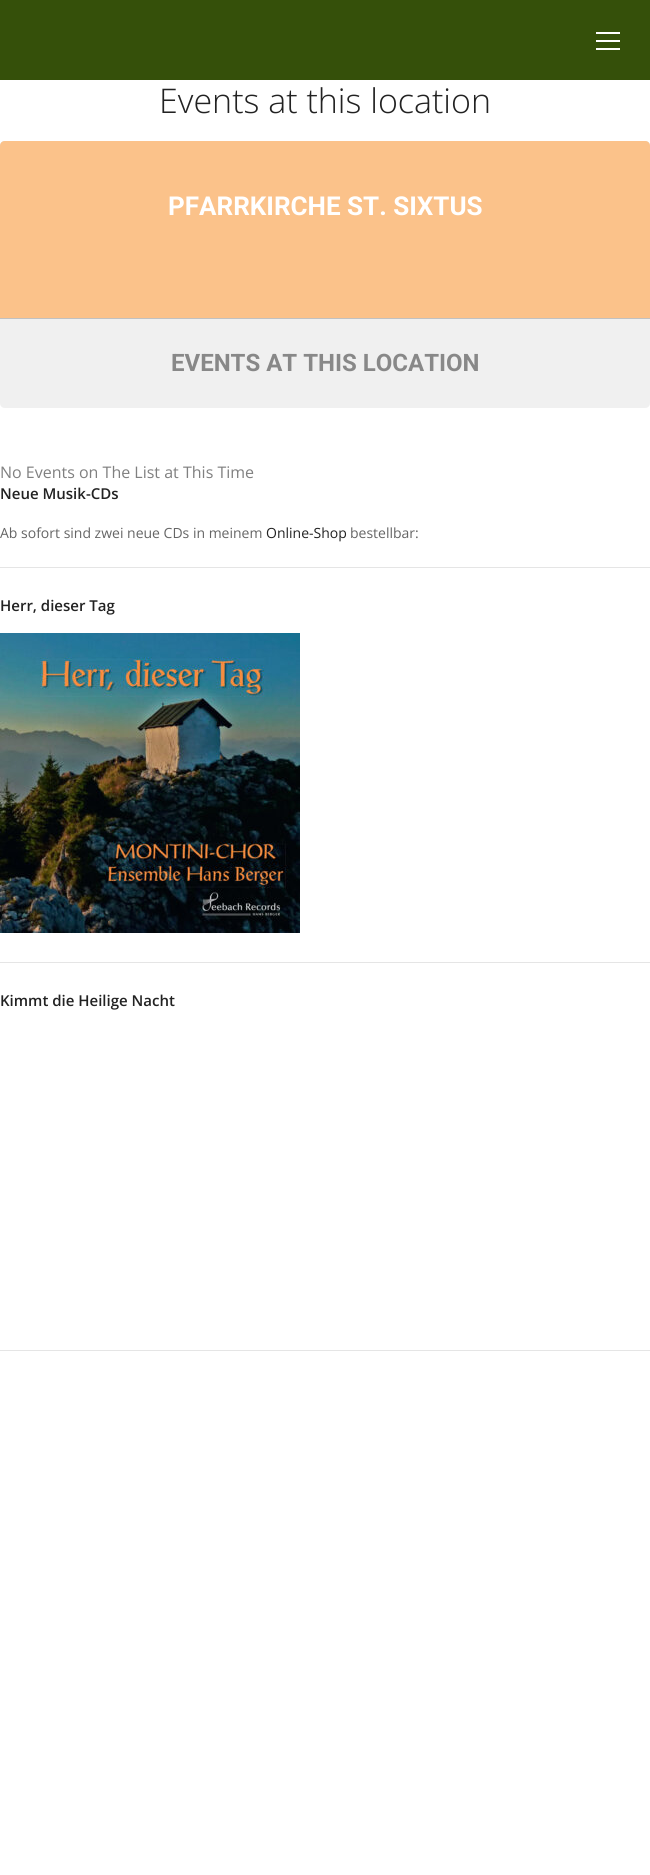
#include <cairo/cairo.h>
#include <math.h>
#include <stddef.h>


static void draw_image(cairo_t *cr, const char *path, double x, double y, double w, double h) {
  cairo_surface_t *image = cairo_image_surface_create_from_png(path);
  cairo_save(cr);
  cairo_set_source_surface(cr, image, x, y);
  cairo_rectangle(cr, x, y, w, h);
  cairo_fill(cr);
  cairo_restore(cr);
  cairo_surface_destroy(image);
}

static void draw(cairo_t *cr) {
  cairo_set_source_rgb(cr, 1, 1, 1);
  cairo_paint(cr);
  cairo_set_source_rgb(cr, 53 / 255.0, 80 / 255.0, 10 / 255.0);
  cairo_rectangle(cr, 0, 0, 650, 80);
  cairo_fill(cr);
  cairo_set_source_rgb(cr, 1, 1, 1);
  cairo_rectangle(cr, 596, 40, 24, 2);
  cairo_fill(cr);
  cairo_rectangle(cr, 596, 32, 24, 2);
  cairo_fill(cr);
  cairo_rectangle(cr, 596, 48, 24, 2);
  cairo_fill(cr);
  cairo_set_source_rgb(cr, 220 / 255.0, 220 / 255.0, 220 / 255.0);
  cairo_new_path(cr);
  cairo_move_to(cr, 5, 141);
  cairo_line_to(cr, 645, 141);
  cairo_curve_to(cr, 648, 141, 650, 143, 650, 146);
  cairo_line_to(cr, 650, 318);
  cairo_line_to(cr, 0, 318);
  cairo_line_to(cr, 0, 146);
  cairo_curve_to(cr, 0, 143, 2, 141, 5, 141);
  cairo_close_path(cr);
  cairo_fill(cr);
  cairo_set_source_rgba(cr, 1, 191 / 255.0, 128 / 255.0, 0.89);
  cairo_new_path(cr);
  cairo_move_to(cr, 5, 141);
  cairo_line_to(cr, 645, 141);
  cairo_curve_to(cr, 648, 141, 650, 143, 650, 146);
  cairo_line_to(cr, 650, 318);
  cairo_line_to(cr, 0, 318);
  cairo_line_to(cr, 0, 146);
  cairo_curve_to(cr, 0, 143, 2, 141, 5, 141);
  cairo_close_path(cr);
  cairo_fill(cr);
  cairo_set_source_rgb(cr, 240 / 255.0, 240 / 255.0, 240 / 255.0);
  cairo_new_path(cr);
  cairo_move_to(cr, 0, 318);
  cairo_line_to(cr, 650, 318);
  cairo_line_to(cr, 650, 403);
  cairo_curve_to(cr, 650, 406, 648, 408, 645, 408);
  cairo_line_to(cr, 5, 408);
  cairo_curve_to(cr, 2, 408, 0, 406, 0, 403);
  cairo_close_path(cr);
  cairo_fill(cr);
  cairo_set_source_rgb(cr, 193 / 255.0, 193 / 255.0, 193 / 255.0);
  cairo_rectangle(cr, 0, 318, 650, 1);
  cairo_fill(cr);
  cairo_set_source_rgb(cr, 229 / 255.0, 229 / 255.0, 229 / 255.0);
  cairo_rectangle(cr, 0, 567, 650, 1);
  cairo_fill(cr);
  cairo_rectangle(cr, 0, 962, 650, 1);
  cairo_fill(cr);
  draw_image(cr, "images/1.png", 0, 633, 300, 300);
  cairo_rectangle(cr, 0, 1350, 650, 1);
  cairo_fill(cr);
  cairo_select_font_face(cr, "Open Sans Light", CAIRO_FONT_SLANT_NORMAL, CAIRO_FONT_WEIGHT_NORMAL);
  cairo_set_font_size(cr, 34);
  cairo_set_source_rgb(cr, 34 / 255.0, 34 / 255.0, 34 / 255.0);
  cairo_move_to(cr, 159, 113);
  cairo_show_text(cr, "Events at this location");
  cairo_select_font_face(cr, "Roboto", CAIRO_FONT_SLANT_NORMAL, CAIRO_FONT_WEIGHT_BOLD);
  cairo_set_font_size(cr, 26);
  cairo_set_source_rgb(cr, 1, 1, 1);
  cairo_move_to(cr, 168, 215);
  cairo_show_text(cr, "PFARRKIRCHE ST. SIXTUS");
  cairo_set_font_size(cr, 24);
  cairo_set_source_rgb(cr, 136 / 255.0, 136 / 255.0, 136 / 255.0);
  cairo_move_to(cr, 171, 371);
  cairo_show_text(cr, "EVENTS AT THIS LOCATION");
  cairo_select_font_face(cr, "Open Sans", CAIRO_FONT_SLANT_NORMAL, CAIRO_FONT_WEIGHT_NORMAL);
  cairo_set_font_size(cr, 16);
  cairo_set_source_rgb(cr, 128 / 255.0, 128 / 255.0, 128 / 255.0);
  cairo_move_to(cr, 0, 478);
  cairo_show_text(cr, "No Events on The List at This Time");
  cairo_select_font_face(cr, "Open Sans SemiBold", CAIRO_FONT_SLANT_NORMAL, CAIRO_FONT_WEIGHT_NORMAL);
  cairo_set_font_size(cr, 15);
  cairo_set_source_rgb(cr, 34 / 255.0, 34 / 255.0, 34 / 255.0);
  cairo_move_to(cr, 0, 499);
  cairo_show_text(cr, "Neue Musik-CDs");
  cairo_select_font_face(cr, "Open Sans", CAIRO_FONT_SLANT_NORMAL, CAIRO_FONT_WEIGHT_NORMAL);
  cairo_set_font_size(cr, 14);
  cairo_set_source_rgb(cr, 101 / 255.0, 101 / 255.0, 101 / 255.0);
  cairo_move_to(cr, 0, 538);
  cairo_show_text(cr, "Ab sofort sind zwei neue CDs in meinem");
  cairo_set_source_rgb(cr, 34 / 255.0, 34 / 255.0, 34 / 255.0);
  cairo_move_to(cr, 266, 538);
  cairo_show_text(cr, "Online-Shop");
  cairo_set_source_rgb(cr, 101 / 255.0, 101 / 255.0, 101 / 255.0);
  cairo_move_to(cr, 350, 538);
  cairo_show_text(cr, "bestellbar:");
  cairo_select_font_face(cr, "Open Sans SemiBold", CAIRO_FONT_SLANT_NORMAL, CAIRO_FONT_WEIGHT_NORMAL);
  cairo_set_font_size(cr, 15);
  cairo_set_source_rgb(cr, 34 / 255.0, 34 / 255.0, 34 / 255.0);
  cairo_move_to(cr, 0, 611);
  cairo_show_text(cr, "Herr, dieser Tag");
  cairo_move_to(cr, 0, 1006);
  cairo_show_text(cr, "Kimmt die Heilige Nacht");
}

int main(void) {
  cairo_surface_t *surface = cairo_image_surface_create(CAIRO_FORMAT_RGB24, 650, 1875);
  cairo_t *cr = cairo_create(surface);
  cairo_font_options_t *options = cairo_font_options_create();
  cairo_font_options_set_hint_metrics(options, CAIRO_HINT_METRICS_OFF);
  cairo_font_options_set_hint_style(options, CAIRO_HINT_STYLE_NONE);
  cairo_set_font_options(cr, options);
  cairo_set_miter_limit(cr, 4);
  draw(cr);
  cairo_surface_write_to_png(surface, "out.png");
  cairo_font_options_destroy(options);
  cairo_destroy(cr);
  cairo_surface_destroy(surface);
  return 0;
}
